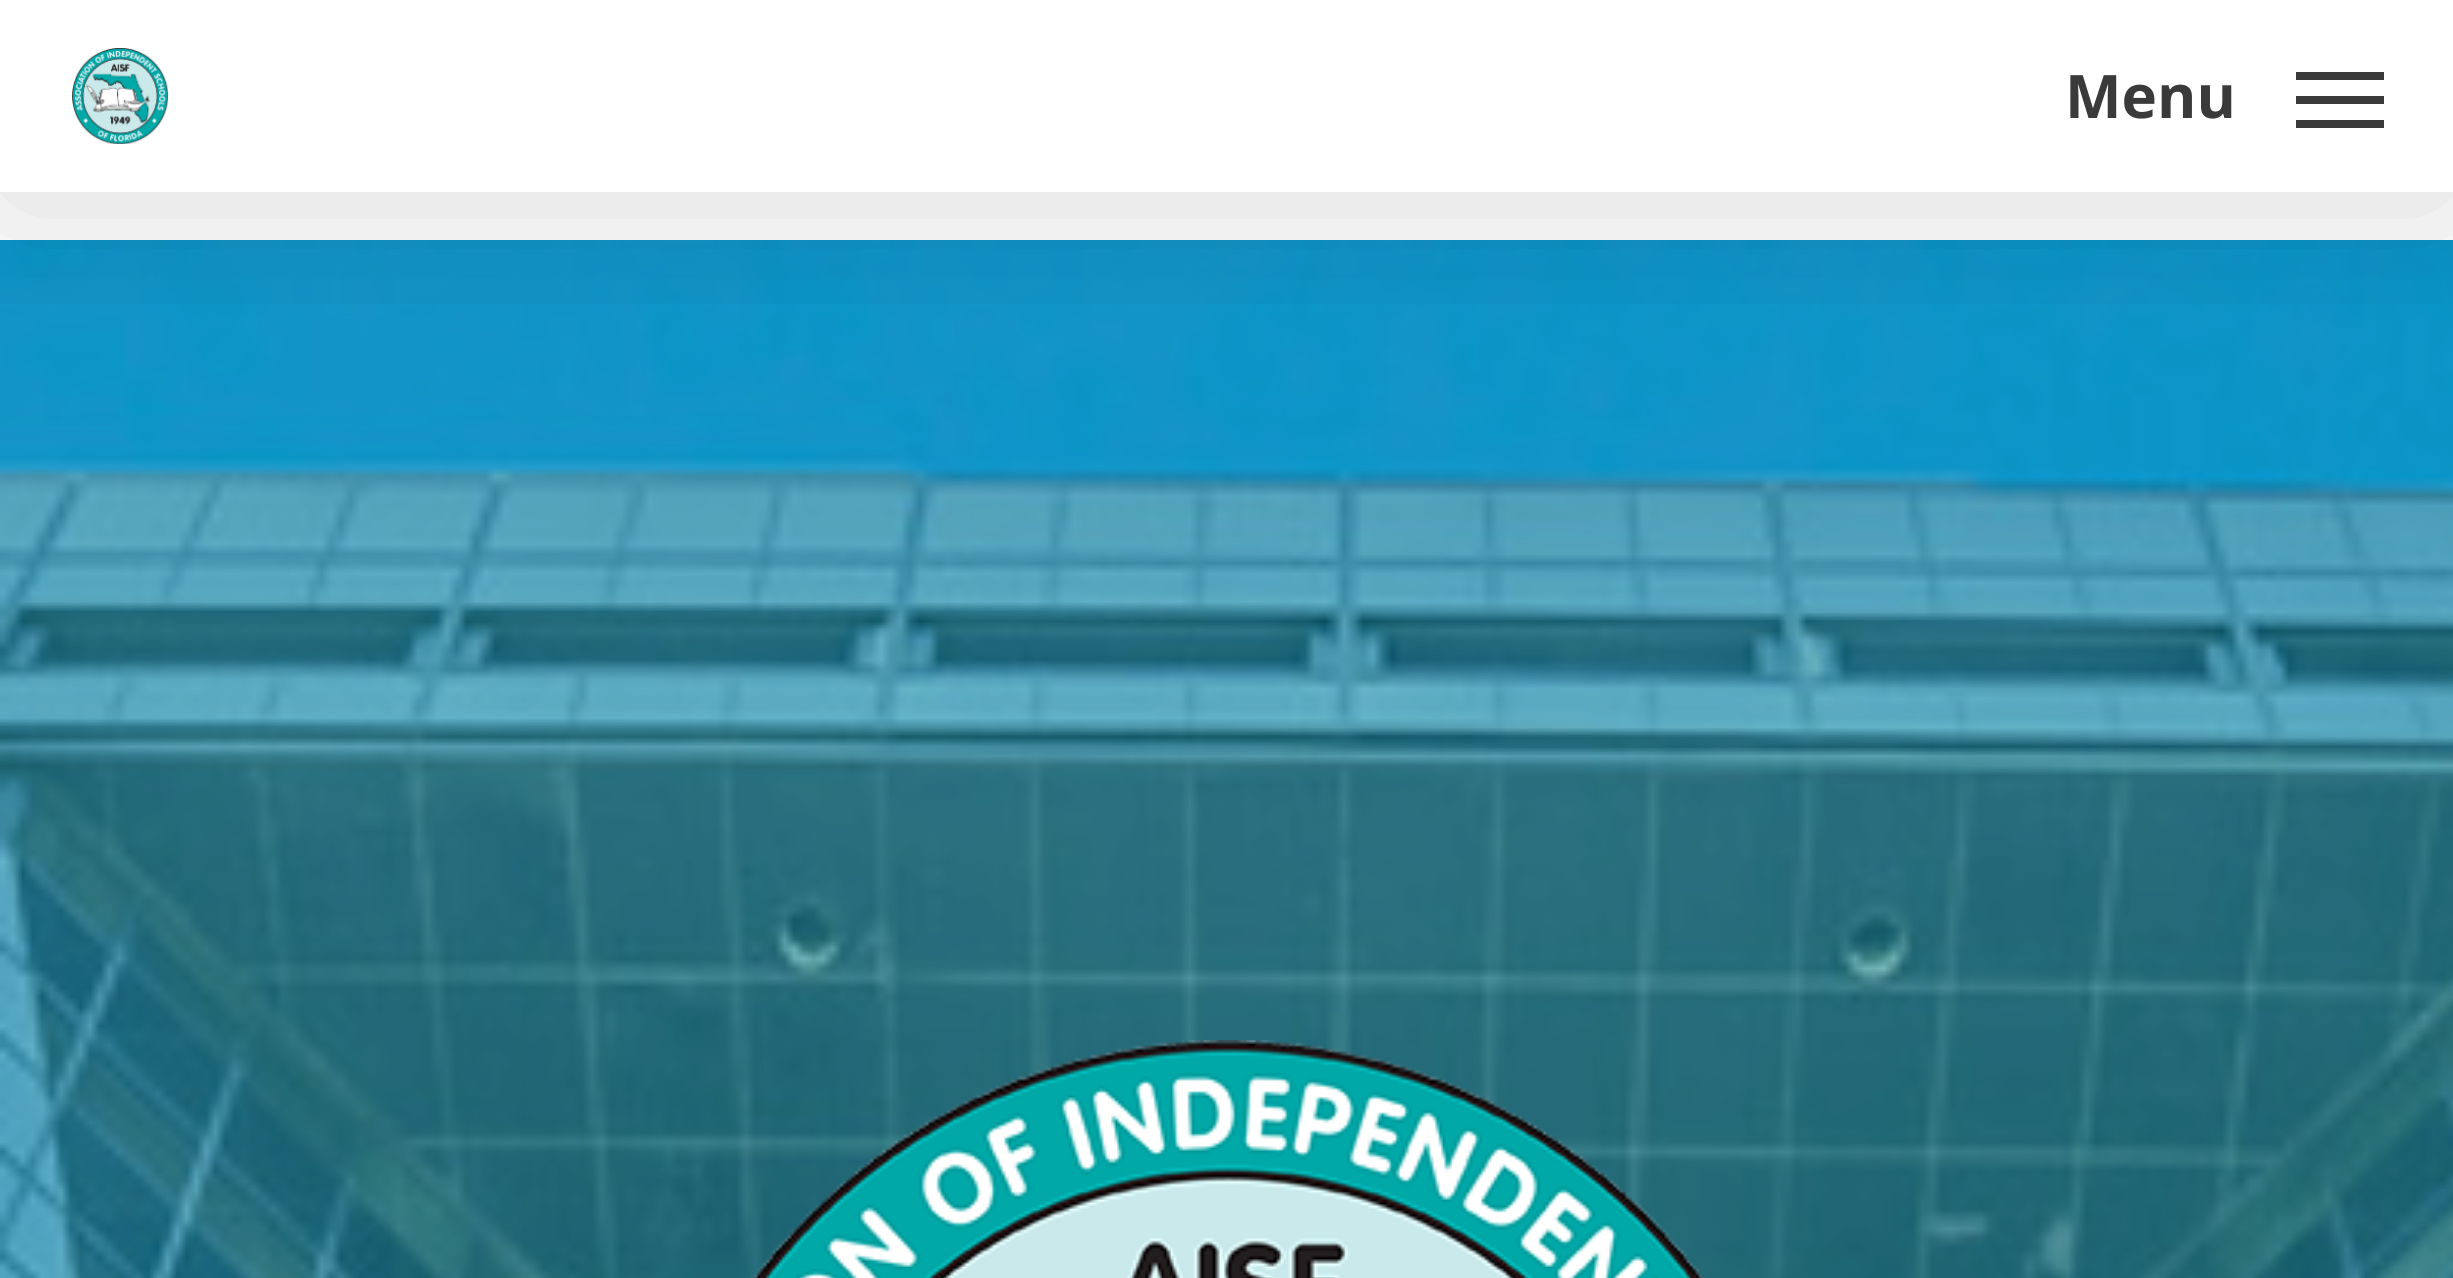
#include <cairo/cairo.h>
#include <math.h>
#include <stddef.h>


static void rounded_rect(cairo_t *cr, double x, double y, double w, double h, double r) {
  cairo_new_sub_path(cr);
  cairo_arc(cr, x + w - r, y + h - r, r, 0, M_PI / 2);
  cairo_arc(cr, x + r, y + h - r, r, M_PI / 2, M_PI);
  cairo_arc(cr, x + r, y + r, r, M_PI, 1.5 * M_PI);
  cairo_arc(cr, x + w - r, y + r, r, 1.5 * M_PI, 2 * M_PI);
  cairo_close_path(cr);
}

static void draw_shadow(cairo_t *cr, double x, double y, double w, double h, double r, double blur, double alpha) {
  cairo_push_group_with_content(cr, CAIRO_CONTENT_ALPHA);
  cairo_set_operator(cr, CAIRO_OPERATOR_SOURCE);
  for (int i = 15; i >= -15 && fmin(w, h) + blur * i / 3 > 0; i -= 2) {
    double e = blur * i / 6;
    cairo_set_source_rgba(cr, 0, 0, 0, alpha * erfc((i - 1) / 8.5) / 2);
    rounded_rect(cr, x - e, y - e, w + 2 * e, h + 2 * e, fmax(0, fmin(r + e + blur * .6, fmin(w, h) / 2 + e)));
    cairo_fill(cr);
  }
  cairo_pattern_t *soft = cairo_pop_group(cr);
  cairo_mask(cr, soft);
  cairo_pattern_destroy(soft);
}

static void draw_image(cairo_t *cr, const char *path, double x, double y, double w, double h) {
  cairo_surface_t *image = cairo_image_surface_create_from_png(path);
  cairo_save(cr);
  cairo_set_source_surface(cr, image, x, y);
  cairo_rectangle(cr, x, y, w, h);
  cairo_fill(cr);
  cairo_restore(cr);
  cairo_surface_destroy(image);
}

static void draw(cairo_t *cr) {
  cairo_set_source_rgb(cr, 1, 1, 1);
  cairo_paint(cr);
  draw_image(cr, "images/2.png", 0, 240, 2453, 1038);
  cairo_save(cr);
  cairo_rectangle(cr, 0, 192, 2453, 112);
  cairo_clip(cr);
  cairo_set_source_rgb(cr, 0, 0, 0);
  draw_shadow(cr, 0, 12, 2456, 192, 0, 90, 0.15);
  cairo_restore(cr);
  draw_image(cr, "images/1.png", 72, 48, 96, 96);
  cairo_set_source_rgb(cr, 58 / 255.0, 58 / 255.0, 58 / 255.0);
  cairo_rectangle(cr, 2296, 72, 88, 8);
  cairo_fill(cr);
  cairo_rectangle(cr, 2296, 120, 88, 8);
  cairo_fill(cr);
  cairo_rectangle(cr, 2296, 96, 88, 8);
  cairo_fill(cr);
  draw_image(cr, "images/3.png", 751, 1040, 954, 238);
  cairo_select_font_face(cr, "Open Sans", CAIRO_FONT_SLANT_NORMAL, CAIRO_FONT_WEIGHT_BOLD);
  cairo_set_font_size(cr, 60);
  cairo_move_to(cr, 2065, 118);
  cairo_show_text(cr, "Menu");
}

int main(void) {
  cairo_surface_t *surface = cairo_image_surface_create(CAIRO_FORMAT_RGB24, 2453, 1278);
  cairo_t *cr = cairo_create(surface);
  cairo_font_options_t *options = cairo_font_options_create();
  cairo_font_options_set_hint_metrics(options, CAIRO_HINT_METRICS_OFF);
  cairo_font_options_set_hint_style(options, CAIRO_HINT_STYLE_NONE);
  cairo_set_font_options(cr, options);
  cairo_set_miter_limit(cr, 4);
  draw(cr);
  cairo_surface_write_to_png(surface, "out.png");
  cairo_font_options_destroy(options);
  cairo_destroy(cr);
  cairo_surface_destroy(surface);
  return 0;
}
